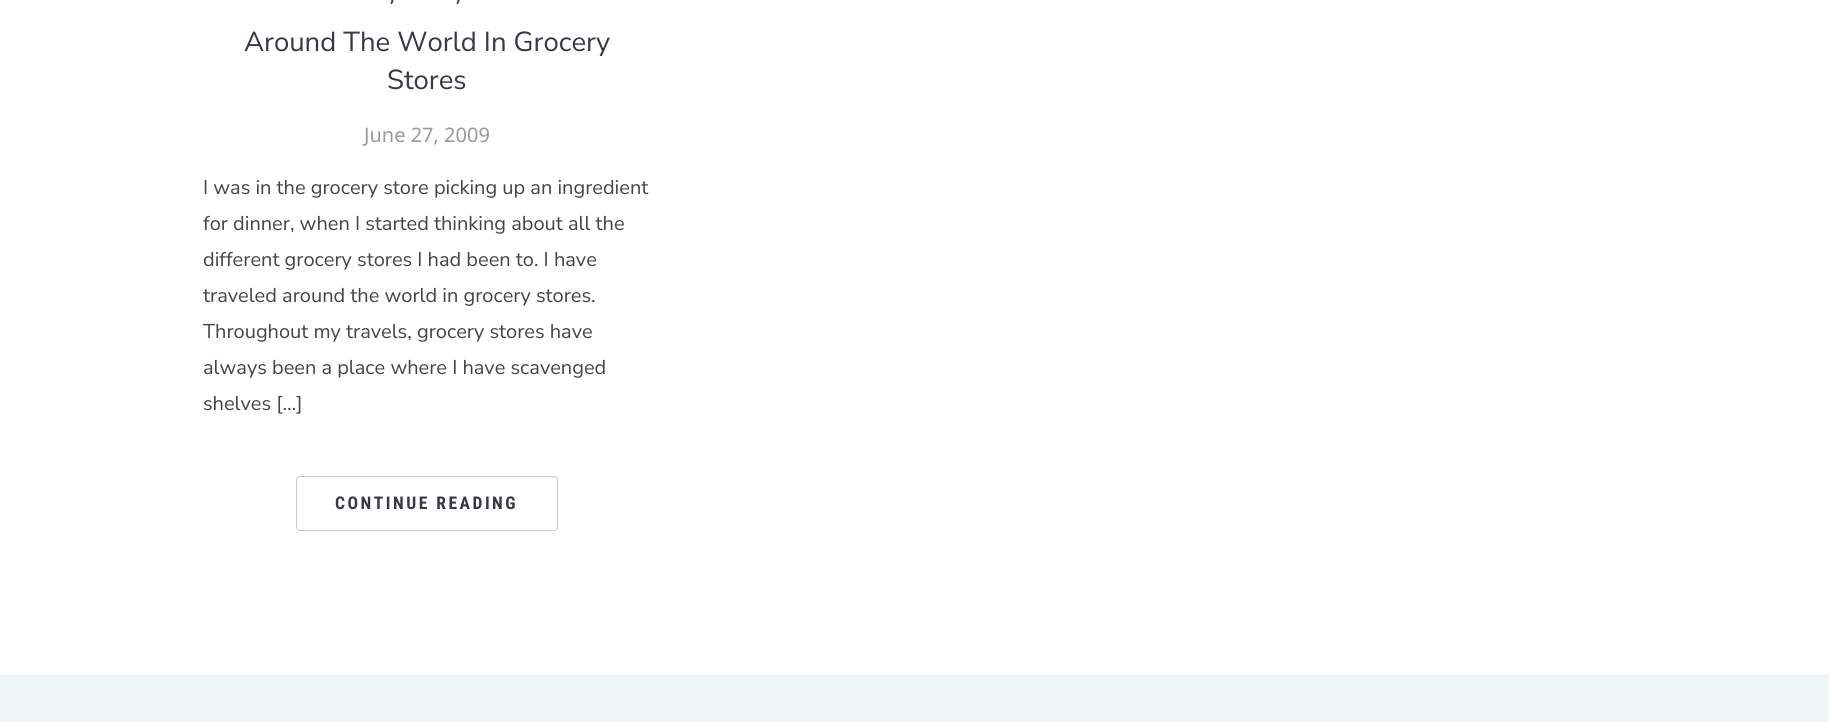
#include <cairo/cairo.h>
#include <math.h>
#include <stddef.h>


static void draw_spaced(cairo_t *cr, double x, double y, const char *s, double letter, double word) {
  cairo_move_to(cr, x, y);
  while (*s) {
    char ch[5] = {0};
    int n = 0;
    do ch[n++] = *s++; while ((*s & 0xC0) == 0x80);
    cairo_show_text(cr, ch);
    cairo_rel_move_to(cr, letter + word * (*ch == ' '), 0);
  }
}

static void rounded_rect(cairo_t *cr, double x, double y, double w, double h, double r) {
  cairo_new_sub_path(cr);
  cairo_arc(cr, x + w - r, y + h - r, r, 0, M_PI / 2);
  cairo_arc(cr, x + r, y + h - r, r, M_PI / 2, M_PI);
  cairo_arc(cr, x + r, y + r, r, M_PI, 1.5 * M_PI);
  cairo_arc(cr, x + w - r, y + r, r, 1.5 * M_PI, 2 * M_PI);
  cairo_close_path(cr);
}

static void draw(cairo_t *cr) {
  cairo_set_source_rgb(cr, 1, 1, 1);
  cairo_paint(cr);
  rounded_rect(cr, 296.5, 476.5, 261, 54, 3.5);
  cairo_set_source_rgb(cr, 199 / 255.0, 201 / 255.0, 207 / 255.0);
  cairo_set_line_width(cr, 1);
  cairo_stroke(cr);
  cairo_set_source_rgb(cr, 240 / 255.0, 240 / 255.0, 240 / 255.0);
  cairo_rectangle(cr, 0, 675, 1829, 1);
  cairo_fill(cr);
  cairo_set_source_rgb(cr, 239 / 255.0, 244 / 255.0, 247 / 255.0);
  cairo_rectangle(cr, 0, 676, 1829, 46);
  cairo_fill(cr);
  cairo_select_font_face(cr, "Roboto Condensed Medium", CAIRO_FONT_SLANT_NORMAL, CAIRO_FONT_WEIGHT_NORMAL);
  cairo_set_font_size(cr, 20);
  cairo_set_source_rgb(cr, 68 / 255.0, 68 / 255.0, 68 / 255.0);
  draw_spaced(cr, 390, 1, ",", 1, 0);
  draw_spaced(cr, 456, 1, ",", 1, 0);
  cairo_select_font_face(cr, "Nunito Sans ExtraLight", CAIRO_FONT_SLANT_NORMAL, CAIRO_FONT_WEIGHT_NORMAL);
  cairo_set_font_size(cr, 27.5);
  cairo_set_source_rgb(cr, 54 / 255.0, 57 / 255.0, 64 / 255.0);
  cairo_move_to(cr, 244, 51);
  cairo_show_text(cr, "Around The World In Grocery");
  cairo_move_to(cr, 387, 89);
  cairo_show_text(cr, "Stores");
  cairo_select_font_face(cr, "Noto Sans", CAIRO_FONT_SLANT_NORMAL, CAIRO_FONT_WEIGHT_NORMAL);
  cairo_set_font_size(cr, 20);
  cairo_set_source_rgb(cr, 153 / 255.0, 153 / 255.0, 153 / 255.0);
  cairo_move_to(cr, 364, 142);
  cairo_show_text(cr, "June 27, 2009");
  cairo_select_font_face(cr, "Nunito Sans ExtraLight", CAIRO_FONT_SLANT_NORMAL, CAIRO_FONT_WEIGHT_NORMAL);
  cairo_set_source_rgb(cr, 68 / 255.0, 68 / 255.0, 68 / 255.0);
  cairo_move_to(cr, 203, 194);
  cairo_show_text(cr, "I was in the grocery store picking up an ingredient");
  cairo_move_to(cr, 203, 230);
  cairo_show_text(cr, "for dinner, when I started thinking about all the");
  cairo_move_to(cr, 203, 266);
  cairo_show_text(cr, "different grocery stores I had been to. I have");
  cairo_move_to(cr, 203, 302);
  cairo_show_text(cr, "traveled around the world in grocery stores.");
  cairo_move_to(cr, 203, 338);
  cairo_show_text(cr, "Throughout my travels, grocery stores have");
  cairo_move_to(cr, 203, 374);
  cairo_show_text(cr, "always been a place where I have scavenged");
  cairo_move_to(cr, 203, 410);
  cairo_show_text(cr, "shelves […]");
  cairo_select_font_face(cr, "Roboto Condensed", CAIRO_FONT_SLANT_NORMAL, CAIRO_FONT_WEIGHT_BOLD);
  cairo_set_font_size(cr, 17.5);
  cairo_set_source_rgb(cr, 54 / 255.0, 57 / 255.0, 64 / 255.0);
  draw_spaced(cr, 335, 509, "CONTINUE READING", 2.5, 0);
}

int main(void) {
  cairo_surface_t *surface = cairo_image_surface_create(CAIRO_FORMAT_RGB24, 1829, 722);
  cairo_t *cr = cairo_create(surface);
  cairo_font_options_t *options = cairo_font_options_create();
  cairo_font_options_set_hint_metrics(options, CAIRO_HINT_METRICS_OFF);
  cairo_font_options_set_hint_style(options, CAIRO_HINT_STYLE_NONE);
  cairo_set_font_options(cr, options);
  cairo_set_miter_limit(cr, 4);
  draw(cr);
  cairo_surface_write_to_png(surface, "out.png");
  cairo_font_options_destroy(options);
  cairo_destroy(cr);
  cairo_surface_destroy(surface);
  return 0;
}
